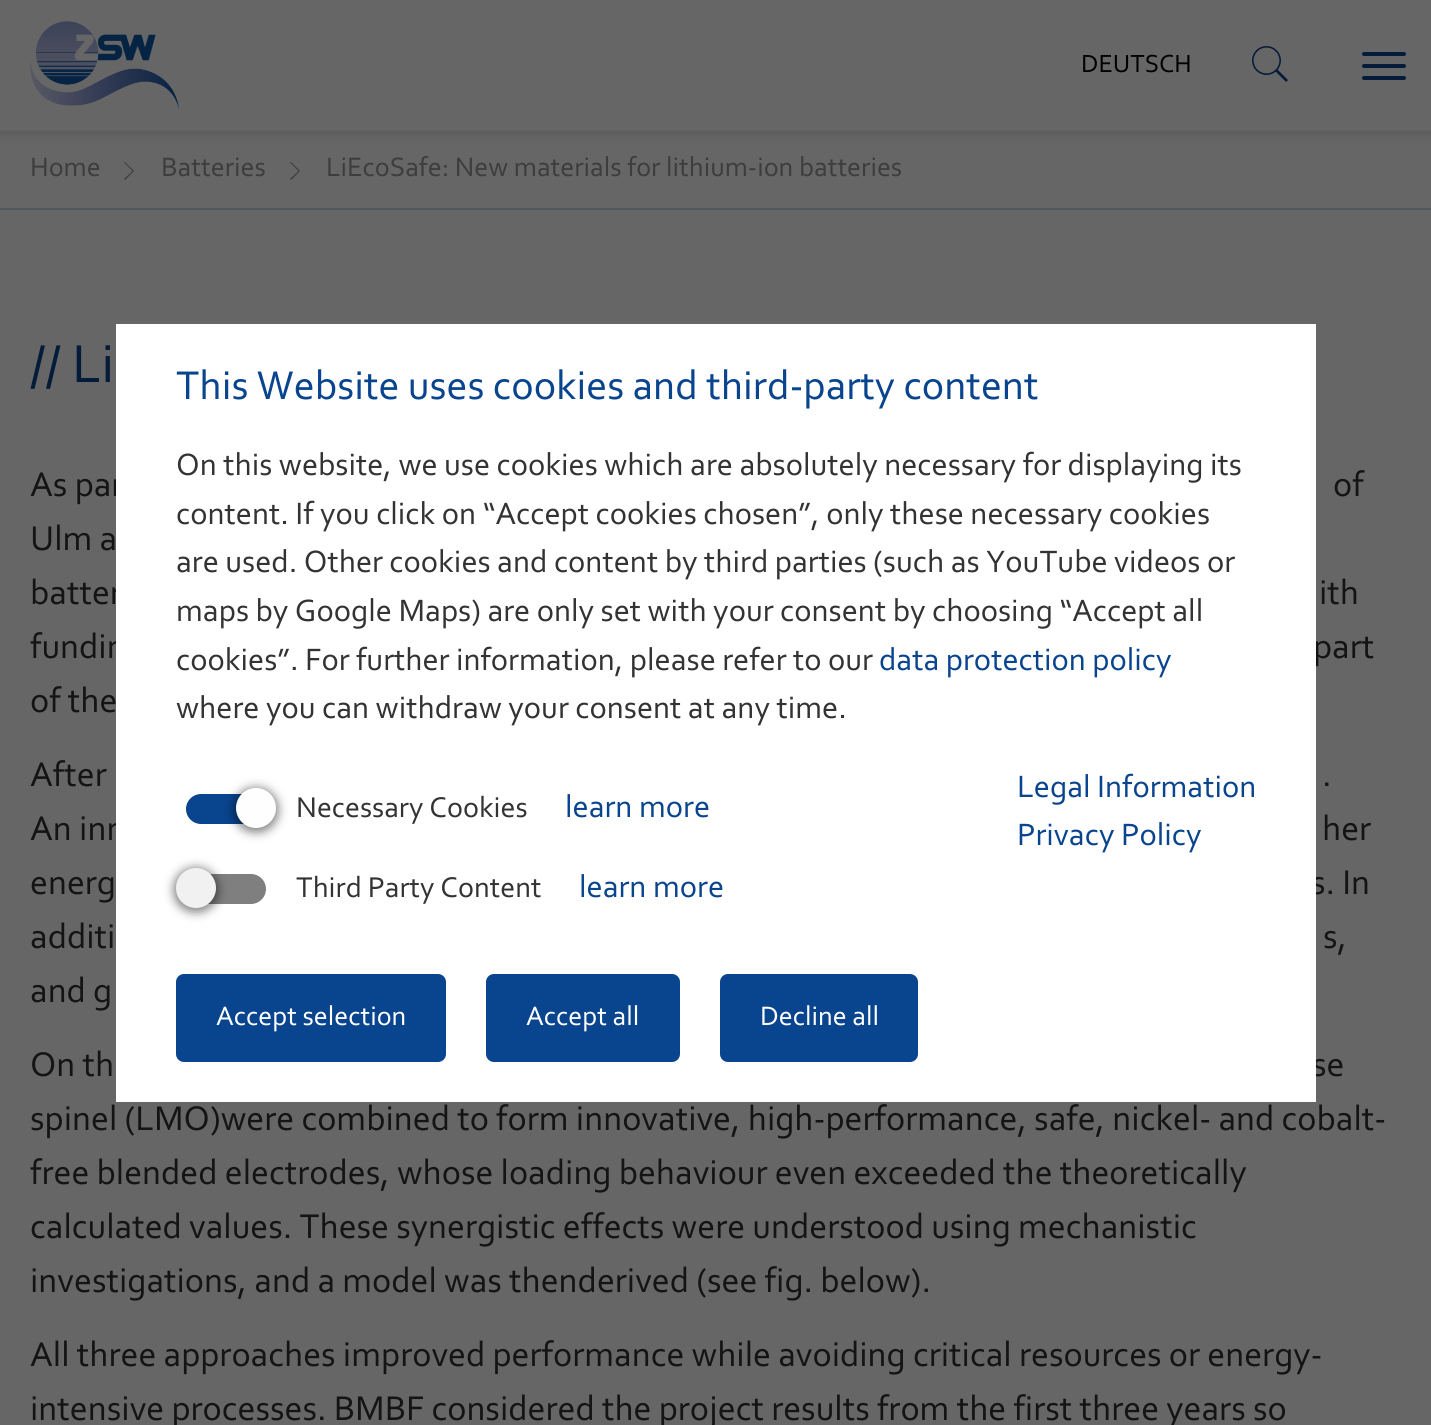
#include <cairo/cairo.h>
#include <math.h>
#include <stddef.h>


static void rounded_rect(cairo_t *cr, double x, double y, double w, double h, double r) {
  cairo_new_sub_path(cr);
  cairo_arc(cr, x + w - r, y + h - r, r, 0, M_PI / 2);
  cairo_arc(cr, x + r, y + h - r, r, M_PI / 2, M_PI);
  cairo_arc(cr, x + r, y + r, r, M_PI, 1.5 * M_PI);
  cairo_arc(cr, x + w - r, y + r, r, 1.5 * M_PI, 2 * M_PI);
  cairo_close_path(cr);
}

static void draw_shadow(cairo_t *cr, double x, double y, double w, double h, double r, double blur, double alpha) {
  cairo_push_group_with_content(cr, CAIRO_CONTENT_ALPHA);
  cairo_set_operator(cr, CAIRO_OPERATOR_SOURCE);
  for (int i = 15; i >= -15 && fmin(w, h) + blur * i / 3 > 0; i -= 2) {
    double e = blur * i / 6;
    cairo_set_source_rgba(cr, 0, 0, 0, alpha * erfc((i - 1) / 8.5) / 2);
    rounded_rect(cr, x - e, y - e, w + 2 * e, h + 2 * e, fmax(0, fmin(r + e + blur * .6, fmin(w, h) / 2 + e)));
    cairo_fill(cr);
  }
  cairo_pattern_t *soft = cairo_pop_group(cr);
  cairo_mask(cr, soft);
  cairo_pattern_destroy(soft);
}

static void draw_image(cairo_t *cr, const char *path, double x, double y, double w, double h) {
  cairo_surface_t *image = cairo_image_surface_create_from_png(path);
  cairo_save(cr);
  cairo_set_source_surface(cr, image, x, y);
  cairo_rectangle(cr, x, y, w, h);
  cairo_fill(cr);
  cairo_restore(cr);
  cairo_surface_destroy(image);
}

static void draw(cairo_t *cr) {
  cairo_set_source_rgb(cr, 102 / 255.0, 102 / 255.0, 102 / 255.0);
  cairo_paint(cr);
  cairo_set_source_rgb(cr, 0, 0, 0);
  draw_shadow(cr, -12, -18, 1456, 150, 0, 6, 0.2);
  cairo_set_source_rgb(cr, 102 / 255.0, 102 / 255.0, 102 / 255.0);
  cairo_rectangle(cr, 0, 0, 1431, 130);
  cairo_fill(cr);
  cairo_set_source_rgb(cr, 97 / 255.0, 97 / 255.0, 97 / 255.0);
  cairo_rectangle(cr, 0, 130, 1431, 2);
  cairo_fill(cr);
  draw_image(cr, "images/1.png", 30, 21, 149, 88);
  draw_image(cr, "images/2.png", 1252, 46, 36, 36);
  cairo_set_source_rgb(cr, 4 / 255.0, 27 / 255.0, 57 / 255.0);
  rounded_rect(cr, 1362, 52, 44, 4, 2);
  cairo_fill(cr);
  rounded_rect(cr, 1362, 64, 44, 4, 2);
  cairo_fill(cr);
  rounded_rect(cr, 1362, 76, 44, 4, 2);
  cairo_fill(cr);
  cairo_set_source_rgb(cr, 82 / 255.0, 87 / 255.0, 93 / 255.0);
  cairo_rectangle(cr, 0, 208, 1431, 2);
  cairo_fill(cr);
  cairo_set_source_rgb(cr, 61 / 255.0, 61 / 255.0, 61 / 255.0);
  cairo_new_path(cr);
  cairo_move_to(cr, 134, 171);
  cairo_line_to(cr, 125, 162);
  cairo_line_to(cr, 124, 162.5);
  cairo_line_to(cr, 132.5, 171);
  cairo_line_to(cr, 124, 179);
  cairo_line_to(cr, 125, 180);
  cairo_close_path(cr);
  cairo_fill(cr);
  cairo_new_path(cr);
  cairo_move_to(cr, 300, 171);
  cairo_line_to(cr, 291, 162);
  cairo_line_to(cr, 290, 162.5);
  cairo_line_to(cr, 298.5, 171);
  cairo_line_to(cr, 290, 179);
  cairo_line_to(cr, 291, 180);
  cairo_close_path(cr);
  cairo_fill(cr);
  cairo_select_font_face(cr, "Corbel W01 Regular", CAIRO_FONT_SLANT_NORMAL, CAIRO_FONT_WEIGHT_NORMAL);
  cairo_set_font_size(cr, 26);
  cairo_set_source_rgb(cr, 0, 0, 0);
  cairo_move_to(cr, 1081, 72);
  cairo_show_text(cr, "DEUTSCH");
  cairo_set_font_size(cr, 28);
  cairo_set_source_rgb(cr, 61 / 255.0, 61 / 255.0, 61 / 255.0);
  cairo_move_to(cr, 30, 176);
  cairo_show_text(cr, "Home");
  cairo_move_to(cr, 161, 176);
  cairo_show_text(cr, "Batteries");
  cairo_move_to(cr, 326, 176);
  cairo_show_text(cr, "LiEcoSafe: New materials for lithium-ion batteries");
  cairo_set_font_size(cr, 56);
  cairo_set_source_rgb(cr, 4 / 255.0, 27 / 255.0, 57 / 255.0);
  cairo_move_to(cr, 30, 382);
  cairo_show_text(cr, "// Li");
  cairo_set_font_size(cr, 36);
  cairo_set_source_rgb(cr, 20 / 255.0, 20 / 255.0, 20 / 255.0);
  cairo_move_to(cr, 30, 496);
  cairo_show_text(cr, "As par");
  cairo_move_to(cr, 1333, 496);
  cairo_show_text(cr, "of");
  cairo_move_to(cr, 30, 550);
  cairo_show_text(cr, "Ulm a");
  cairo_move_to(cr, 30, 604);
  cairo_show_text(cr, "batter");
  cairo_move_to(cr, 1319, 604);
  cairo_show_text(cr, "ith");
  cairo_move_to(cr, 30, 658);
  cairo_show_text(cr, "fundin");
  cairo_move_to(cr, 1313, 658);
  cairo_show_text(cr, "part");
  cairo_move_to(cr, 30, 712);
  cairo_show_text(cr, "of the");
  cairo_move_to(cr, 30, 786);
  cairo_show_text(cr, "After");
  cairo_move_to(cr, 1322, 786);
  cairo_show_text(cr, ".");
  cairo_move_to(cr, 30, 840);
  cairo_show_text(cr, "An inn");
  cairo_move_to(cr, 1322, 840);
  cairo_show_text(cr, "her");
  cairo_move_to(cr, 30, 894);
  cairo_show_text(cr, "energ");
  cairo_move_to(cr, 1311, 894);
  cairo_show_text(cr, "s. In");
  cairo_move_to(cr, 30, 948);
  cairo_show_text(cr, "additi");
  cairo_move_to(cr, 1323, 948);
  cairo_show_text(cr, "s,");
  cairo_move_to(cr, 30, 1002);
  cairo_show_text(cr, "and g");
  cairo_move_to(cr, 30, 1076);
  cairo_show_text(cr, "On th");
  cairo_move_to(cr, 1312, 1076);
  cairo_show_text(cr, "se");
  cairo_move_to(cr, 30, 1130);
  cairo_show_text(cr, "spinel (LMO)were combined to form innovative, high-performance, safe, nickel- and cobalt-");
  cairo_move_to(cr, 30, 1184);
  cairo_show_text(cr, "free blended electrodes, whose loading behaviour even exceeded the theoretically");
  cairo_move_to(cr, 30, 1238);
  cairo_show_text(cr, "calculated values. These synergistic effects were understood using mechanistic");
  cairo_move_to(cr, 30, 1292);
  cairo_show_text(cr, "investigations, and a model was thenderived (see fig. below).");
  cairo_move_to(cr, 30, 1366);
  cairo_show_text(cr, "All three approaches improved performance while avoiding critical resources or energy-");
  cairo_move_to(cr, 30, 1420);
  cairo_show_text(cr, "intensive processes. BMBF considered the project results from the first three years so");
  cairo_set_source_rgb(cr, 1, 1, 1);
  cairo_rectangle(cr, 116, 324, 1200, 778);
  cairo_fill(cr);
  cairo_set_font_size(cr, 42);
  cairo_set_source_rgb(cr, 9 / 255.0, 68 / 255.0, 142 / 255.0);
  cairo_move_to(cr, 176, 399);
  cairo_show_text(cr, "This Website uses cookies and third-party content");
  cairo_set_font_size(cr, 32.4);
  cairo_set_source_rgb(cr, 51 / 255.0, 51 / 255.0, 51 / 255.0);
  cairo_move_to(cr, 176, 475);
  cairo_show_text(cr, "On this website, we use cookies which are absolutely necessary for displaying its");
  cairo_move_to(cr, 176, 524);
  cairo_show_text(cr, "content. If you click on “Accept cookies chosen”, only these necessary cookies");
  cairo_move_to(cr, 176, 572);
  cairo_show_text(cr, "are used. Other cookies and content by third parties (such as YouTube videos or");
  cairo_move_to(cr, 176, 621);
  cairo_show_text(cr, "maps by Google Maps) are only set with your consent by choosing “Accept all");
  cairo_move_to(cr, 176, 670);
  cairo_show_text(cr, "cookies”. For further information, please refer to our");
  cairo_set_source_rgb(cr, 9 / 255.0, 68 / 255.0, 142 / 255.0);
  cairo_move_to(cr, 879, 670);
  cairo_show_text(cr, "data protection policy");
  cairo_set_source_rgb(cr, 51 / 255.0, 51 / 255.0, 51 / 255.0);
  cairo_move_to(cr, 176, 718);
  cairo_show_text(cr, "where you can withdraw your consent at any time.");
  cairo_set_source_rgb(cr, 9 / 255.0, 68 / 255.0, 142 / 255.0);
  rounded_rect(cr, 186, 794, 80, 30, 15);
  cairo_fill(cr);
  cairo_set_source_rgb(cr, 0, 0, 0);
  draw_shadow(cr, 234, 788, 44, 44, 22, 5, 0.5);
  cairo_set_source_rgb(cr, 254 / 255.0, 254 / 255.0, 254 / 255.0);
  cairo_arc(cr, 256, 808, 20, 0, 2 * M_PI);
  cairo_fill(cr);
  cairo_set_font_size(cr, 30);
  cairo_set_source_rgb(cr, 51 / 255.0, 51 / 255.0, 51 / 255.0);
  cairo_move_to(cr, 296, 817);
  cairo_show_text(cr, "Necessary Cookies");
  cairo_set_font_size(cr, 32.4);
  cairo_set_source_rgb(cr, 9 / 255.0, 68 / 255.0, 142 / 255.0);
  cairo_move_to(cr, 565, 817);
  cairo_show_text(cr, "learn more");
  cairo_move_to(cr, 1017, 797);
  cairo_show_text(cr, "Legal Information");
  cairo_move_to(cr, 1017, 845);
  cairo_show_text(cr, "Privacy Policy");
  cairo_set_source_rgb(cr, 127 / 255.0, 127 / 255.0, 127 / 255.0);
  rounded_rect(cr, 186, 874, 80, 30, 15);
  cairo_fill(cr);
  cairo_set_source_rgb(cr, 0, 0, 0);
  draw_shadow(cr, 174, 868, 44, 44, 22, 5, 0.5);
  cairo_set_source_rgb(cr, 241 / 255.0, 241 / 255.0, 241 / 255.0);
  cairo_arc(cr, 196, 888, 20, 0, 2 * M_PI);
  cairo_fill(cr);
  cairo_set_font_size(cr, 30);
  cairo_set_source_rgb(cr, 51 / 255.0, 51 / 255.0, 51 / 255.0);
  cairo_move_to(cr, 296, 897);
  cairo_show_text(cr, "Third Party Content");
  cairo_set_font_size(cr, 32.4);
  cairo_set_source_rgb(cr, 9 / 255.0, 68 / 255.0, 142 / 255.0);
  cairo_move_to(cr, 579, 897);
  cairo_show_text(cr, "learn more");
  rounded_rect(cr, 176, 974, 270, 88, 8);
  cairo_fill(cr);
  cairo_set_font_size(cr, 28);
  cairo_set_source_rgb(cr, 1, 1, 1);
  cairo_move_to(cr, 216, 1025);
  cairo_show_text(cr, "Accept selection");
  cairo_set_source_rgb(cr, 9 / 255.0, 68 / 255.0, 142 / 255.0);
  rounded_rect(cr, 486, 974, 194, 88, 8);
  cairo_fill(cr);
  cairo_set_source_rgb(cr, 1, 1, 1);
  cairo_move_to(cr, 526, 1025);
  cairo_show_text(cr, "Accept all");
  cairo_set_source_rgb(cr, 9 / 255.0, 68 / 255.0, 142 / 255.0);
  rounded_rect(cr, 720, 974, 198, 88, 8);
  cairo_fill(cr);
  cairo_set_source_rgb(cr, 1, 1, 1);
  cairo_move_to(cr, 760, 1025);
  cairo_show_text(cr, "Decline all");
}

int main(void) {
  cairo_surface_t *surface = cairo_image_surface_create(CAIRO_FORMAT_RGB24, 1431, 1425);
  cairo_t *cr = cairo_create(surface);
  cairo_font_options_t *options = cairo_font_options_create();
  cairo_font_options_set_hint_metrics(options, CAIRO_HINT_METRICS_OFF);
  cairo_font_options_set_hint_style(options, CAIRO_HINT_STYLE_NONE);
  cairo_set_font_options(cr, options);
  cairo_set_miter_limit(cr, 4);
  draw(cr);
  cairo_surface_write_to_png(surface, "out.png");
  cairo_font_options_destroy(options);
  cairo_destroy(cr);
  cairo_surface_destroy(surface);
  return 0;
}
